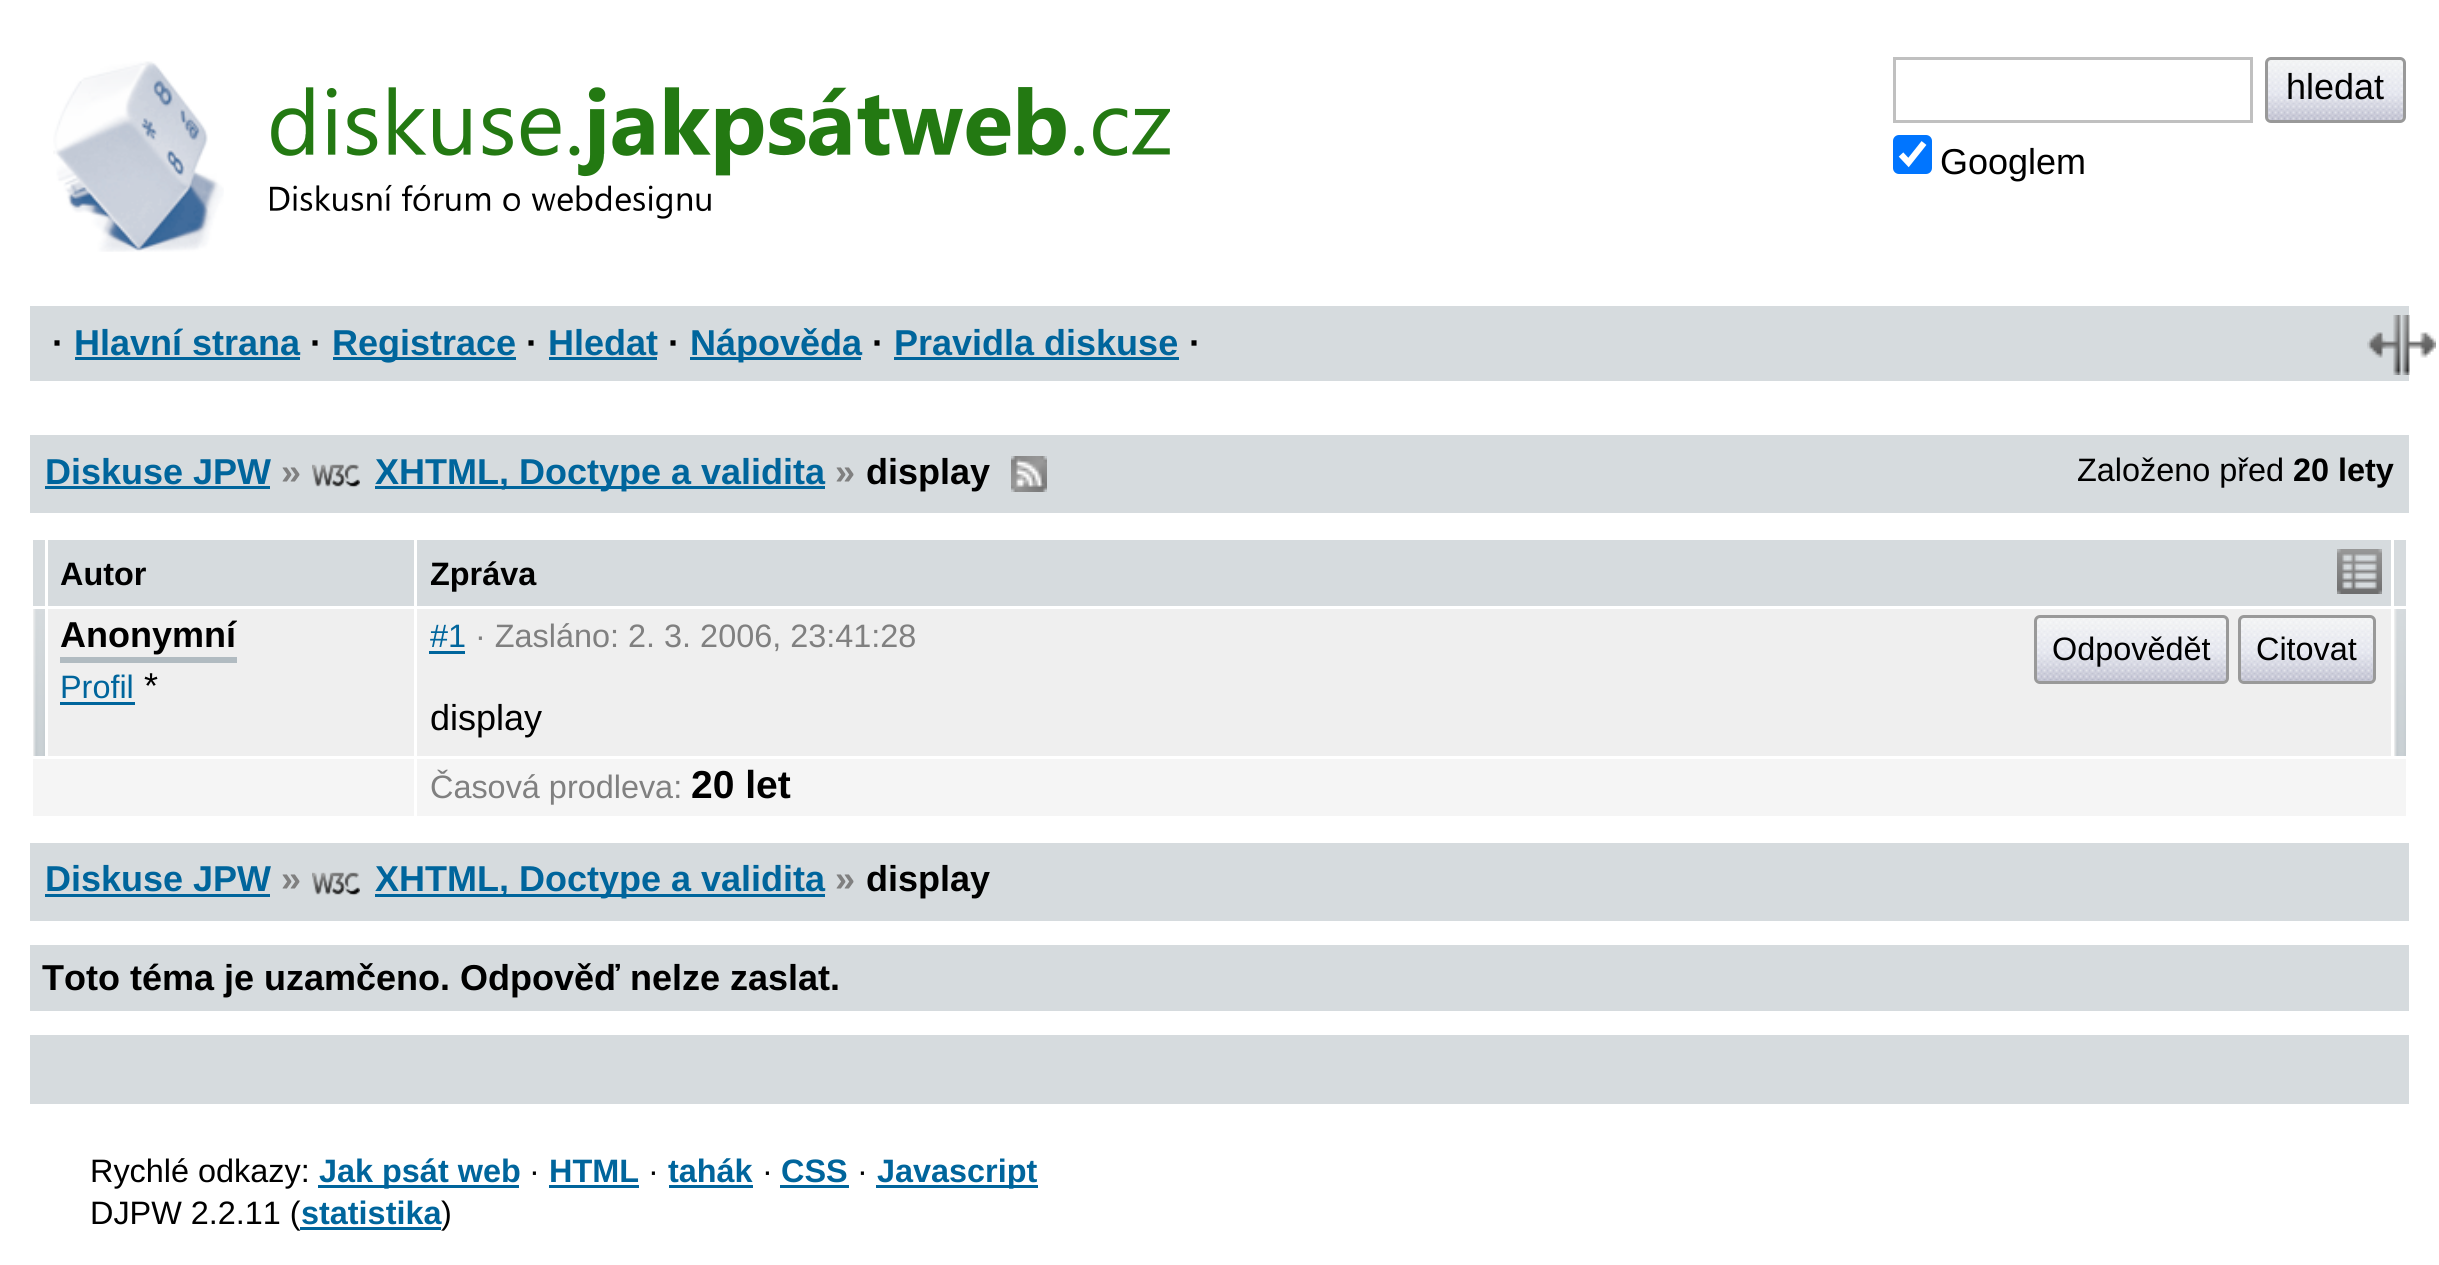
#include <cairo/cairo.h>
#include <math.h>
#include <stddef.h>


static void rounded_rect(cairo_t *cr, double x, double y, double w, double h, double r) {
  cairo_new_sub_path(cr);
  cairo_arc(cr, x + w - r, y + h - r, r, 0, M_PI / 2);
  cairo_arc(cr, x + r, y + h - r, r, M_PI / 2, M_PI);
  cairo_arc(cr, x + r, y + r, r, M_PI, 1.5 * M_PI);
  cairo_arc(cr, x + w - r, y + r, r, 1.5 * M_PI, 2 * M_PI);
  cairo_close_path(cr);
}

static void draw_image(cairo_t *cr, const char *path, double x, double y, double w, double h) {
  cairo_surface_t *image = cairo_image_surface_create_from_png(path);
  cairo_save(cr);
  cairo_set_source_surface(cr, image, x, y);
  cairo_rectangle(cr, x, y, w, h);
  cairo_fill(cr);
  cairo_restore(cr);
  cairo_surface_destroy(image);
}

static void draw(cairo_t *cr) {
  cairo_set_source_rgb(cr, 1, 1, 1);
  cairo_paint(cr);
  draw_image(cr, "images/1.png", 53, 61, 171, 191);
  draw_image(cr, "images/2.png", 270, 87, 900, 132);
  cairo_rectangle(cr, 1894.5, 58.5, 357, 63);
  cairo_set_source_rgb(cr, 192 / 255.0, 192 / 255.0, 192 / 255.0);
  cairo_set_line_width(cr, 3);
  cairo_stroke(cr);
  cairo_set_source_rgb(cr, 214 / 255.0, 219 / 255.0, 222 / 255.0);
  rounded_rect(cr, 2268, 60, 135, 60, 3);
  cairo_fill(cr);
  draw_image(cr, "images/3.png", 2268, 60, 135, 60);
  rounded_rect(cr, 2266.5, 58.5, 138, 63, 4.5);
  cairo_set_source_rgb(cr, 153 / 255.0, 153 / 255.0, 153 / 255.0);
  cairo_stroke(cr);
  cairo_set_source_rgb(cr, 0, 117 / 255.0, 1);
  rounded_rect(cr, 1893, 135, 39, 39, 6);
  cairo_fill(cr);
  cairo_new_path(cr);
  cairo_move_to(cr, 1901, 154.5);
  cairo_line_to(cr, 1908.5, 162.5);
  cairo_line_to(cr, 1924, 143);
  cairo_set_source_rgb(cr, 1, 1, 1);
  cairo_set_line_width(cr, 6.2);
  cairo_stroke(cr);
  cairo_set_source_rgb(cr, 214 / 255.0, 219 / 255.0, 222 / 255.0);
  cairo_rectangle(cr, 30, 306, 2379, 75);
  cairo_fill(cr);
  cairo_set_source_rgb(cr, 0, 101 / 255.0, 156 / 255.0);
  cairo_rectangle(cr, 75, 357, 225, 3);
  cairo_fill(cr);
  cairo_rectangle(cr, 333, 357, 183, 3);
  cairo_fill(cr);
  cairo_rectangle(cr, 549, 357, 108, 3);
  cairo_fill(cr);
  cairo_rectangle(cr, 690, 357, 171, 3);
  cairo_fill(cr);
  cairo_rectangle(cr, 894, 357, 285, 3);
  cairo_fill(cr);
  draw_image(cr, "images/4.png", 2367, 315, 69, 60);
  cairo_set_source_rgb(cr, 214 / 255.0, 219 / 255.0, 222 / 255.0);
  cairo_rectangle(cr, 30, 435, 2379, 78);
  cairo_fill(cr);
  cairo_set_source_rgb(cr, 0, 101 / 255.0, 156 / 255.0);
  cairo_rectangle(cr, 45, 486, 225, 3);
  cairo_fill(cr);
  draw_image(cr, "images/5.png", 312, 464, 48, 24);
  cairo_rectangle(cr, 375, 486, 450, 3);
  cairo_fill(cr);
  draw_image(cr, "images/6.png", 1011, 456, 36, 36);
  cairo_set_source_rgb(cr, 214 / 255.0, 219 / 255.0, 222 / 255.0);
  cairo_rectangle(cr, 33, 540, 12, 66);
  cairo_fill(cr);
  cairo_rectangle(cr, 48, 540, 366, 66);
  cairo_fill(cr);
  cairo_rectangle(cr, 417, 540, 1974, 66);
  cairo_fill(cr);
  cairo_rectangle(cr, 2394, 540, 12, 66);
  cairo_fill(cr);
  cairo_set_source_rgb(cr, 239 / 255.0, 239 / 255.0, 239 / 255.0);
  cairo_rectangle(cr, 48, 609, 2343, 147);
  cairo_fill(cr);
  draw_image(cr, "images/7.png", 33, 609, 12, 147);
  cairo_set_source_rgb(cr, 177 / 255.0, 187 / 255.0, 193 / 255.0);
  cairo_rectangle(cr, 60, 657, 177, 6);
  cairo_fill(cr);
  cairo_set_source_rgb(cr, 0, 101 / 255.0, 156 / 255.0);
  cairo_rectangle(cr, 60, 702, 75, 3);
  cairo_fill(cr);
  cairo_set_source_rgb(cr, 1, 1, 1);
  cairo_rectangle(cr, 414, 606, 3, 153);
  cairo_fill(cr);
  cairo_set_source_rgb(cr, 0, 101 / 255.0, 156 / 255.0);
  cairo_rectangle(cr, 429, 651, 36, 3);
  cairo_fill(cr);
  cairo_set_source_rgb(cr, 214 / 255.0, 219 / 255.0, 222 / 255.0);
  rounded_rect(cr, 2037, 618, 189, 63, 3);
  cairo_fill(cr);
  draw_image(cr, "images/8.png", 2037, 618, 189, 63);
  rounded_rect(cr, 2035.5, 616.5, 192, 66, 4.5);
  cairo_set_source_rgb(cr, 153 / 255.0, 153 / 255.0, 153 / 255.0);
  cairo_set_line_width(cr, 3);
  cairo_stroke(cr);
  cairo_set_source_rgb(cr, 214 / 255.0, 219 / 255.0, 222 / 255.0);
  rounded_rect(cr, 2241, 618, 132, 63, 3);
  cairo_fill(cr);
  draw_image(cr, "images/9.png", 2241, 618, 132, 63);
  rounded_rect(cr, 2239.5, 616.5, 135, 66, 4.5);
  cairo_set_source_rgb(cr, 153 / 255.0, 153 / 255.0, 153 / 255.0);
  cairo_stroke(cr);
  draw_image(cr, "images/7.png", 2394, 609, 12, 147);
  cairo_set_source_rgb(cr, 245 / 255.0, 245 / 255.0, 245 / 255.0);
  cairo_rectangle(cr, 33, 759, 381, 57);
  cairo_fill(cr);
  cairo_rectangle(cr, 417, 759, 1989, 57);
  cairo_fill(cr);
  draw_image(cr, "images/10.png", 2337, 549, 45, 45);
  cairo_set_source_rgb(cr, 214 / 255.0, 219 / 255.0, 222 / 255.0);
  cairo_rectangle(cr, 30, 843, 2379, 78);
  cairo_fill(cr);
  cairo_set_source_rgb(cr, 0, 101 / 255.0, 156 / 255.0);
  cairo_rectangle(cr, 45, 894, 225, 3);
  cairo_fill(cr);
  draw_image(cr, "images/5.png", 312, 872, 48, 24);
  cairo_rectangle(cr, 375, 894, 450, 3);
  cairo_fill(cr);
  cairo_set_source_rgb(cr, 214 / 255.0, 219 / 255.0, 222 / 255.0);
  cairo_rectangle(cr, 30, 945, 2379, 66);
  cairo_fill(cr);
  cairo_rectangle(cr, 30, 1035, 2379, 69);
  cairo_fill(cr);
  cairo_set_source_rgb(cr, 0, 101 / 255.0, 156 / 255.0);
  cairo_rectangle(cr, 318, 1185, 201, 3);
  cairo_fill(cr);
  cairo_rectangle(cr, 549, 1185, 90, 3);
  cairo_fill(cr);
  cairo_rectangle(cr, 669, 1185, 84, 3);
  cairo_fill(cr);
  cairo_rectangle(cr, 780, 1185, 69, 3);
  cairo_fill(cr);
  cairo_rectangle(cr, 876, 1185, 162, 3);
  cairo_fill(cr);
  cairo_select_font_face(cr, "Liberation Sans", CAIRO_FONT_SLANT_NORMAL, CAIRO_FONT_WEIGHT_NORMAL);
  cairo_set_font_size(cr, 36);
  cairo_set_source_rgb(cr, 0, 0, 0);
  cairo_move_to(cr, 2286, 99);
  cairo_show_text(cr, "hledat");
  cairo_move_to(cr, 1940, 174);
  cairo_show_text(cr, "Googlem");
  cairo_select_font_face(cr, "Liberation Sans", CAIRO_FONT_SLANT_NORMAL, CAIRO_FONT_WEIGHT_BOLD);
  cairo_move_to(cr, 52, 355);
  cairo_show_text(cr, "·");
  cairo_set_source_rgb(cr, 0, 101 / 255.0, 156 / 255.0);
  cairo_move_to(cr, 74, 355);
  cairo_show_text(cr, "Hlavní strana");
  cairo_set_source_rgb(cr, 0, 0, 0);
  cairo_move_to(cr, 310, 355);
  cairo_show_text(cr, "·");
  cairo_set_source_rgb(cr, 0, 101 / 255.0, 156 / 255.0);
  cairo_move_to(cr, 332, 355);
  cairo_show_text(cr, "Registrace");
  cairo_set_source_rgb(cr, 0, 0, 0);
  cairo_move_to(cr, 526, 355);
  cairo_show_text(cr, "·");
  cairo_set_source_rgb(cr, 0, 101 / 255.0, 156 / 255.0);
  cairo_move_to(cr, 548, 355);
  cairo_show_text(cr, "Hledat");
  cairo_set_source_rgb(cr, 0, 0, 0);
  cairo_move_to(cr, 668, 355);
  cairo_show_text(cr, "·");
  cairo_set_source_rgb(cr, 0, 101 / 255.0, 156 / 255.0);
  cairo_move_to(cr, 690, 355);
  cairo_show_text(cr, "Nápověda");
  cairo_set_source_rgb(cr, 0, 0, 0);
  cairo_move_to(cr, 872, 355);
  cairo_show_text(cr, "·");
  cairo_set_source_rgb(cr, 0, 101 / 255.0, 156 / 255.0);
  cairo_move_to(cr, 894, 355);
  cairo_show_text(cr, "Pravidla diskuse");
  cairo_set_source_rgb(cr, 0, 0, 0);
  cairo_move_to(cr, 1189, 355);
  cairo_show_text(cr, "·");
  cairo_set_source_rgb(cr, 0, 101 / 255.0, 156 / 255.0);
  cairo_move_to(cr, 45, 484);
  cairo_show_text(cr, "Diskuse JPW");
  cairo_set_source_rgb(cr, 128 / 255.0, 128 / 255.0, 128 / 255.0);
  cairo_move_to(cr, 281, 484);
  cairo_show_text(cr, "»");
  cairo_set_source_rgb(cr, 0, 101 / 255.0, 156 / 255.0);
  cairo_move_to(cr, 375, 484);
  cairo_show_text(cr, "XHTML, Doctype a validita");
  cairo_set_source_rgb(cr, 128 / 255.0, 128 / 255.0, 128 / 255.0);
  cairo_move_to(cr, 835, 484);
  cairo_show_text(cr, "»");
  cairo_set_source_rgb(cr, 0, 0, 0);
  cairo_move_to(cr, 866, 484);
  cairo_show_text(cr, "display");
  cairo_select_font_face(cr, "Liberation Sans", CAIRO_FONT_SLANT_NORMAL, CAIRO_FONT_WEIGHT_NORMAL);
  cairo_set_font_size(cr, 32.4);
  cairo_move_to(cr, 2077, 481);
  cairo_show_text(cr, "Založeno před");
  cairo_select_font_face(cr, "Liberation Sans", CAIRO_FONT_SLANT_NORMAL, CAIRO_FONT_WEIGHT_BOLD);
  cairo_move_to(cr, 2293, 481);
  cairo_show_text(cr, "20 lety");
  cairo_move_to(cr, 60, 585);
  cairo_show_text(cr, "Autor");
  cairo_move_to(cr, 430, 585);
  cairo_show_text(cr, "Zpráva");
  cairo_set_font_size(cr, 36);
  cairo_move_to(cr, 60, 647);
  cairo_show_text(cr, "Anonymní");
  cairo_select_font_face(cr, "Liberation Sans", CAIRO_FONT_SLANT_NORMAL, CAIRO_FONT_WEIGHT_NORMAL);
  cairo_set_font_size(cr, 32.4);
  cairo_set_source_rgb(cr, 0, 101 / 255.0, 156 / 255.0);
  cairo_move_to(cr, 60, 698);
  cairo_show_text(cr, "Profil");
  cairo_set_font_size(cr, 36);
  cairo_set_source_rgb(cr, 0, 0, 0);
  cairo_move_to(cr, 144, 698);
  cairo_show_text(cr, "*");
  cairo_set_font_size(cr, 32.4);
  cairo_set_source_rgb(cr, 0, 101 / 255.0, 156 / 255.0);
  cairo_move_to(cr, 430, 647);
  cairo_show_text(cr, "#1");
  cairo_set_source_rgb(cr, 128 / 255.0, 128 / 255.0, 128 / 255.0);
  cairo_move_to(cr, 475, 647);
  cairo_show_text(cr, "· Zasláno: 2. 3. 2006, 23:41:28");
  cairo_set_source_rgb(cr, 0, 0, 0);
  cairo_move_to(cr, 2052, 660);
  cairo_show_text(cr, "Odpovědět");
  cairo_move_to(cr, 2256, 660);
  cairo_show_text(cr, "Citovat");
  cairo_set_font_size(cr, 36);
  cairo_move_to(cr, 430, 730);
  cairo_show_text(cr, "display");
  cairo_set_font_size(cr, 32.4);
  cairo_set_source_rgb(cr, 128 / 255.0, 128 / 255.0, 128 / 255.0);
  cairo_move_to(cr, 430, 798);
  cairo_show_text(cr, "Časová prodleva:");
  cairo_select_font_face(cr, "Liberation Sans", CAIRO_FONT_SLANT_NORMAL, CAIRO_FONT_WEIGHT_BOLD);
  cairo_set_font_size(cr, 39);
  cairo_set_source_rgb(cr, 0, 0, 0);
  cairo_move_to(cr, 691, 798);
  cairo_show_text(cr, "20 let");
  cairo_set_font_size(cr, 36);
  cairo_set_source_rgb(cr, 0, 101 / 255.0, 156 / 255.0);
  cairo_move_to(cr, 45, 891);
  cairo_show_text(cr, "Diskuse JPW");
  cairo_set_source_rgb(cr, 128 / 255.0, 128 / 255.0, 128 / 255.0);
  cairo_move_to(cr, 281, 891);
  cairo_show_text(cr, "»");
  cairo_set_source_rgb(cr, 0, 101 / 255.0, 156 / 255.0);
  cairo_move_to(cr, 375, 891);
  cairo_show_text(cr, "XHTML, Doctype a validita");
  cairo_set_source_rgb(cr, 128 / 255.0, 128 / 255.0, 128 / 255.0);
  cairo_move_to(cr, 835, 891);
  cairo_show_text(cr, "»");
  cairo_set_source_rgb(cr, 0, 0, 0);
  cairo_move_to(cr, 866, 891);
  cairo_show_text(cr, "display");
  cairo_move_to(cr, 42, 990);
  cairo_show_text(cr, "Toto téma je uzamčeno. Odpověď nelze zaslat.");
  cairo_select_font_face(cr, "Liberation Sans", CAIRO_FONT_SLANT_NORMAL, CAIRO_FONT_WEIGHT_NORMAL);
  cairo_set_font_size(cr, 32.4);
  cairo_move_to(cr, 90, 1182);
  cairo_show_text(cr, "Rychlé odkazy:");
  cairo_select_font_face(cr, "Liberation Sans", CAIRO_FONT_SLANT_NORMAL, CAIRO_FONT_WEIGHT_BOLD);
  cairo_set_source_rgb(cr, 0, 101 / 255.0, 156 / 255.0);
  cairo_move_to(cr, 319, 1182);
  cairo_show_text(cr, "Jak psát web");
  cairo_select_font_face(cr, "Liberation Sans", CAIRO_FONT_SLANT_NORMAL, CAIRO_FONT_WEIGHT_NORMAL);
  cairo_set_source_rgb(cr, 0, 0, 0);
  cairo_move_to(cr, 529, 1182);
  cairo_show_text(cr, "·");
  cairo_select_font_face(cr, "Liberation Sans", CAIRO_FONT_SLANT_NORMAL, CAIRO_FONT_WEIGHT_BOLD);
  cairo_set_source_rgb(cr, 0, 101 / 255.0, 156 / 255.0);
  cairo_move_to(cr, 549, 1182);
  cairo_show_text(cr, "HTML");
  cairo_select_font_face(cr, "Liberation Sans", CAIRO_FONT_SLANT_NORMAL, CAIRO_FONT_WEIGHT_NORMAL);
  cairo_set_source_rgb(cr, 0, 0, 0);
  cairo_move_to(cr, 648, 1182);
  cairo_show_text(cr, "·");
  cairo_select_font_face(cr, "Liberation Sans", CAIRO_FONT_SLANT_NORMAL, CAIRO_FONT_WEIGHT_BOLD);
  cairo_set_source_rgb(cr, 0, 101 / 255.0, 156 / 255.0);
  cairo_move_to(cr, 668, 1182);
  cairo_show_text(cr, "tahák");
  cairo_select_font_face(cr, "Liberation Sans", CAIRO_FONT_SLANT_NORMAL, CAIRO_FONT_WEIGHT_NORMAL);
  cairo_set_source_rgb(cr, 0, 0, 0);
  cairo_move_to(cr, 762, 1182);
  cairo_show_text(cr, "·");
  cairo_select_font_face(cr, "Liberation Sans", CAIRO_FONT_SLANT_NORMAL, CAIRO_FONT_WEIGHT_BOLD);
  cairo_set_source_rgb(cr, 0, 101 / 255.0, 156 / 255.0);
  cairo_move_to(cr, 781, 1182);
  cairo_show_text(cr, "CSS");
  cairo_select_font_face(cr, "Liberation Sans", CAIRO_FONT_SLANT_NORMAL, CAIRO_FONT_WEIGHT_NORMAL);
  cairo_set_source_rgb(cr, 0, 0, 0);
  cairo_move_to(cr, 857, 1182);
  cairo_show_text(cr, "·");
  cairo_select_font_face(cr, "Liberation Sans", CAIRO_FONT_SLANT_NORMAL, CAIRO_FONT_WEIGHT_BOLD);
  cairo_set_source_rgb(cr, 0, 101 / 255.0, 156 / 255.0);
  cairo_move_to(cr, 877, 1182);
  cairo_show_text(cr, "Javascript");
  cairo_select_font_face(cr, "Liberation Sans", CAIRO_FONT_SLANT_NORMAL, CAIRO_FONT_WEIGHT_NORMAL);
  cairo_set_source_rgb(cr, 0, 0, 0);
  cairo_move_to(cr, 90, 1224);
  cairo_show_text(cr, "DJPW 2.2.11 (");
  cairo_set_source_rgb(cr, 0, 101 / 255.0, 156 / 255.0);
  cairo_rectangle(cr, 300, 1227, 141, 3);
  cairo_fill(cr);
  cairo_select_font_face(cr, "Liberation Sans", CAIRO_FONT_SLANT_NORMAL, CAIRO_FONT_WEIGHT_BOLD);
  cairo_move_to(cr, 301, 1224);
  cairo_show_text(cr, "statistika");
  cairo_select_font_face(cr, "Liberation Sans", CAIRO_FONT_SLANT_NORMAL, CAIRO_FONT_WEIGHT_NORMAL);
  cairo_set_source_rgb(cr, 0, 0, 0);
  cairo_move_to(cr, 441, 1224);
  cairo_show_text(cr, ")");
}

int main(void) {
  cairo_surface_t *surface = cairo_image_surface_create(CAIRO_FORMAT_RGB24, 2439, 1265);
  cairo_t *cr = cairo_create(surface);
  cairo_font_options_t *options = cairo_font_options_create();
  cairo_font_options_set_hint_metrics(options, CAIRO_HINT_METRICS_OFF);
  cairo_font_options_set_hint_style(options, CAIRO_HINT_STYLE_NONE);
  cairo_set_font_options(cr, options);
  cairo_set_miter_limit(cr, 4);
  draw(cr);
  cairo_surface_write_to_png(surface, "out.png");
  cairo_font_options_destroy(options);
  cairo_destroy(cr);
  cairo_surface_destroy(surface);
  return 0;
}
